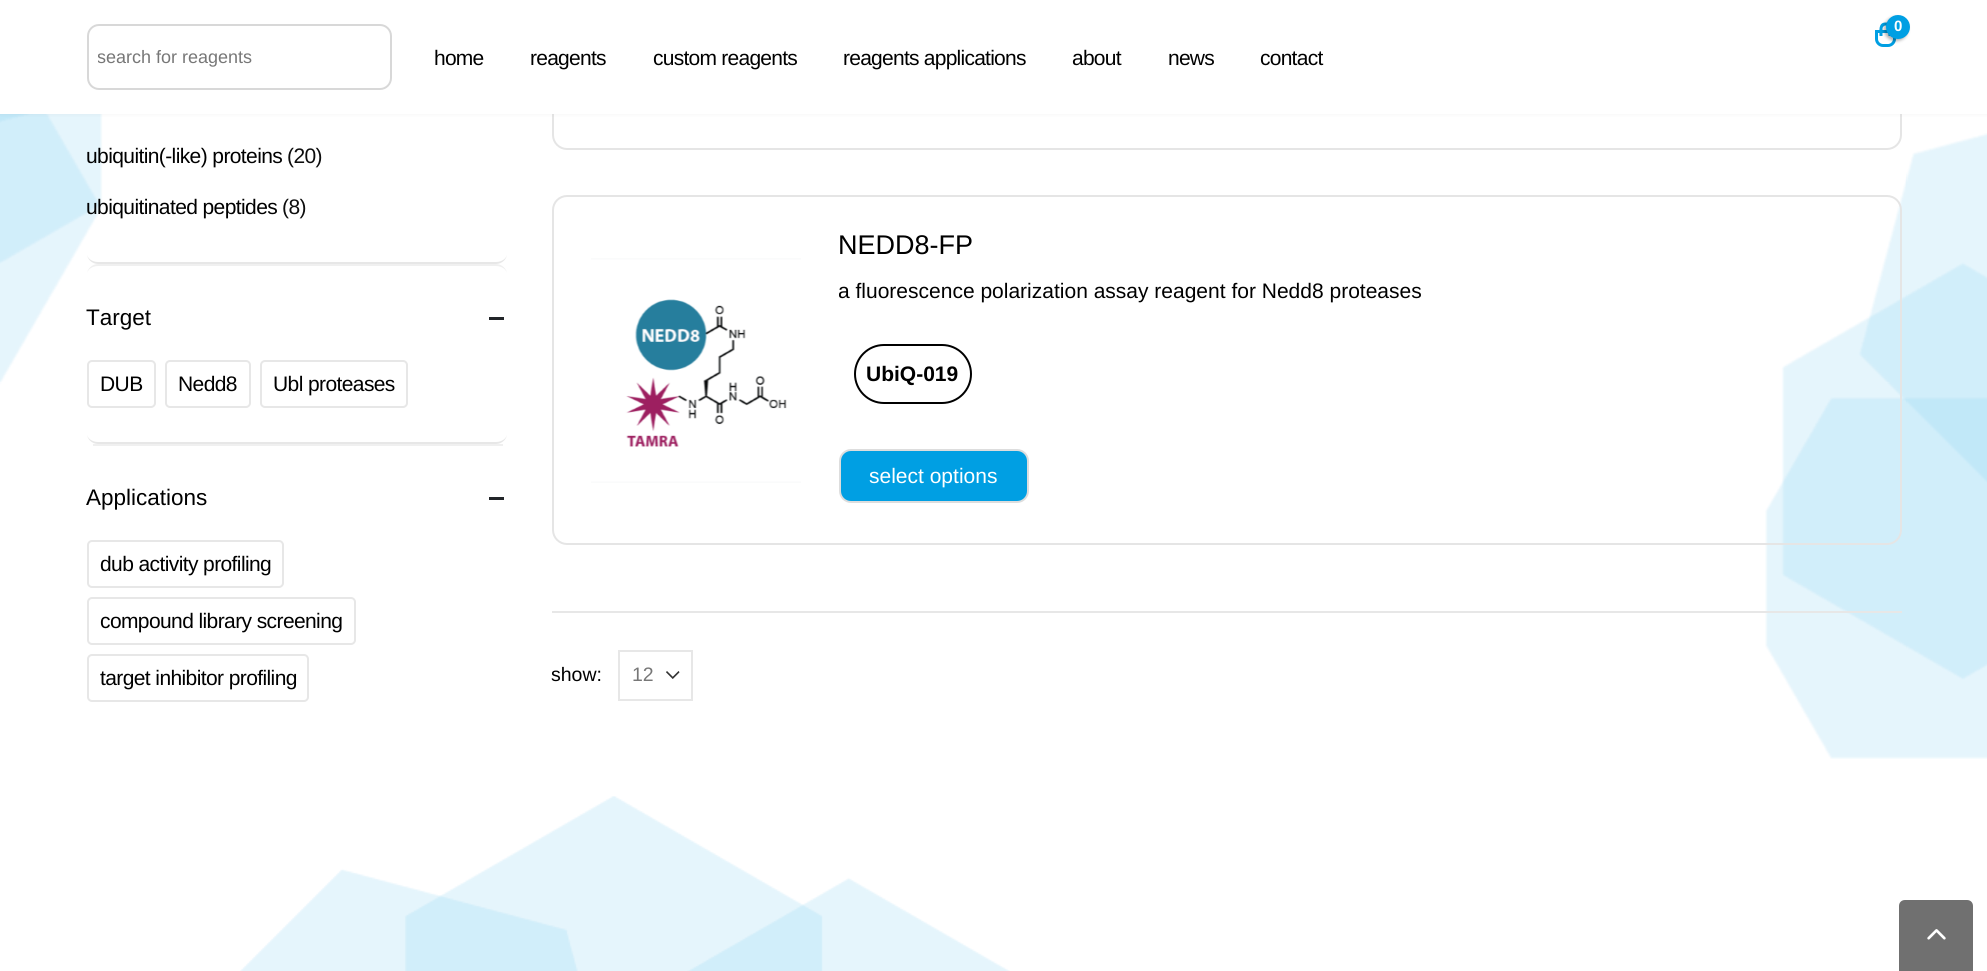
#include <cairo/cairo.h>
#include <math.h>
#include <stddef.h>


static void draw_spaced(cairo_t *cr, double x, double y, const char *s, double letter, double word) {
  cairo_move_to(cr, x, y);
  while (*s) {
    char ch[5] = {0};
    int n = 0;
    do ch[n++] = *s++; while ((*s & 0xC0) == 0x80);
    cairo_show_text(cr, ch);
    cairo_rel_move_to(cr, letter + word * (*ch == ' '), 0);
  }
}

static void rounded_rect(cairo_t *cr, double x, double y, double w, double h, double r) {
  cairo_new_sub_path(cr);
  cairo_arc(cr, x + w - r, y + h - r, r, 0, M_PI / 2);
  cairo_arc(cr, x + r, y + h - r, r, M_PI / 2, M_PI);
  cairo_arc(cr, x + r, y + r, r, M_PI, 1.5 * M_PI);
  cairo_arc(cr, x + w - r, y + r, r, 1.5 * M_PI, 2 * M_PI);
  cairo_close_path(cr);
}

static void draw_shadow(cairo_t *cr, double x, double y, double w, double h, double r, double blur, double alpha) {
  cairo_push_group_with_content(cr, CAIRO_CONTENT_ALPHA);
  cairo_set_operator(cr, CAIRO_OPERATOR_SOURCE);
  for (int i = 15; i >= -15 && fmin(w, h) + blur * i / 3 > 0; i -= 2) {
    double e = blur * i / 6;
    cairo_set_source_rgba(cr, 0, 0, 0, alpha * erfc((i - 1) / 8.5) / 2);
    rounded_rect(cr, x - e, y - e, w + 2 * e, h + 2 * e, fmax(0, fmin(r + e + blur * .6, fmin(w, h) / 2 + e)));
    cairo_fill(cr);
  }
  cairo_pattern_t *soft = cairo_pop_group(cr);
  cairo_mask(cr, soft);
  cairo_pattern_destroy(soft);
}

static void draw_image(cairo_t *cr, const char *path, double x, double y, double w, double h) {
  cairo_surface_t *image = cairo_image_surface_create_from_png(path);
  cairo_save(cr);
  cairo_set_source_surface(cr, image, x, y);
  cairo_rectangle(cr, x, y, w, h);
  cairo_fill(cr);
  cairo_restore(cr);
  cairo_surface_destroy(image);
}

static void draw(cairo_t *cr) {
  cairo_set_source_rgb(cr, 1, 1, 1);
  cairo_paint(cr);
  draw_image(cr, "images/1.png", 0, 114, 1987, 645);
  rounded_rect(cr, 553, -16, 1348, 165, 14);
  cairo_set_source_rgb(cr, 229 / 255.0, 229 / 255.0, 229 / 255.0);
  cairo_stroke(cr);
  cairo_set_source_rgb(cr, 0, 0, 0);
  draw_shadow(cr, 0, 0, 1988, 114, 0, 2, 0.06);
  cairo_set_source_rgb(cr, 1, 1, 1);
  cairo_rectangle(cr, 0, 0, 1987, 114);
  cairo_fill(cr);
  cairo_new_path(cr);
  cairo_move_to(cr, 1876.5, 31.5);
  cairo_line_to(cr, 1894.5, 31.5);
  cairo_line_to(cr, 1894.5, 39);
  cairo_curve_to(cr, 1894.5, 42.5, 1891.5, 45.5, 1888, 45.5);
  cairo_line_to(cr, 1883, 45.5);
  cairo_curve_to(cr, 1879.5, 45.5, 1876.5, 42.5, 1876.5, 39);
  cairo_close_path(cr);
  cairo_set_source_rgb(cr, 0, 159 / 255.0, 227 / 255.0);
  cairo_set_line_width(cr, 3);
  cairo_stroke(cr);
  cairo_set_fill_rule(cr, CAIRO_FILL_RULE_EVEN_ODD);
  cairo_new_path(cr);
  cairo_move_to(cr, 1885.5, 22.5);
  cairo_curve_to(cr, 1893, 22.5, 1891.5, 31, 1891.5, 36);
  cairo_line_to(cr, 1879.5, 36);
  cairo_curve_to(cr, 1879.5, 31, 1878, 22.5, 1885.5, 22.5);
  cairo_close_path(cr);
  cairo_move_to(cr, 1885.5, 25.5);
  cairo_curve_to(cr, 1887, 25.5, 1888.5, 27, 1888.5, 28.5);
  cairo_line_to(cr, 1888.5, 36);
  cairo_line_to(cr, 1882.5, 36);
  cairo_line_to(cr, 1882.5, 28.5);
  cairo_curve_to(cr, 1882.5, 27, 1884, 25.5, 1885.5, 25.5);
  cairo_close_path(cr);
  cairo_fill(cr);
  cairo_set_source_rgb(cr, 0, 0, 0);
  draw_shadow(cr, 1884, 17, 24, 24, 12, 1.5, 0.3);
  cairo_set_source_rgb(cr, 0, 159 / 255.0, 227 / 255.0);
  cairo_arc(cr, 1898, 27, 12, 0, 2 * M_PI);
  cairo_fill(cr);
  rounded_rect(cr, 88, 25, 303, 64, 11);
  cairo_set_source_rgb(cr, 216 / 255.0, 216 / 255.0, 216 / 255.0);
  cairo_set_line_width(cr, 2);
  cairo_stroke(cr);
  cairo_set_source_rgb(cr, 231 / 255.0, 231 / 255.0, 231 / 255.0);
  cairo_set_fill_rule(cr, CAIRO_FILL_RULE_WINDING);
  cairo_new_path(cr);
  cairo_move_to(cr, 496, 264);
  cairo_curve_to(cr, 502, 264, 507, 259, 507, 254);
  cairo_curve_to(cr, 507, 258, 502, 262, 496, 262);
  cairo_line_to(cr, 98, 262);
  cairo_curve_to(cr, 92, 262, 87, 258, 87, 254);
  cairo_curve_to(cr, 87, 259, 92, 264, 98, 264);
  cairo_close_path(cr);
  cairo_fill(cr);
  cairo_set_source_rgb(cr, 240 / 255.0, 240 / 255.0, 240 / 255.0);
  cairo_new_path(cr);
  cairo_move_to(cr, 98, 264);
  cairo_curve_to(cr, 92, 264, 87, 269, 87, 274);
  cairo_curve_to(cr, 87, 270, 92, 266, 98, 266);
  cairo_line_to(cr, 496, 266);
  cairo_curve_to(cr, 502, 266, 507, 270, 507, 274);
  cairo_curve_to(cr, 507, 269, 502, 264, 496, 264);
  cairo_close_path(cr);
  cairo_fill(cr);
  cairo_set_source_rgb(cr, 231 / 255.0, 231 / 255.0, 231 / 255.0);
  cairo_new_path(cr);
  cairo_move_to(cr, 496, 444);
  cairo_curve_to(cr, 502, 444, 507, 439, 507, 434);
  cairo_curve_to(cr, 507, 438, 502, 442, 496, 442);
  cairo_line_to(cr, 98, 442);
  cairo_curve_to(cr, 92, 442, 87, 438, 87, 434);
  cairo_curve_to(cr, 87, 439, 92, 444, 98, 444);
  cairo_close_path(cr);
  cairo_fill(cr);
  cairo_set_source_rgb(cr, 34 / 255.0, 37 / 255.0, 41 / 255.0);
  cairo_rectangle(cr, 489, 317, 15, 3);
  cairo_fill(cr);
  rounded_rect(cr, 88, 361, 67, 46, 4);
  cairo_set_source_rgb(cr, 231 / 255.0, 231 / 255.0, 231 / 255.0);
  cairo_stroke(cr);
  rounded_rect(cr, 166, 361, 84, 46, 4);
  cairo_stroke(cr);
  rounded_rect(cr, 261, 361, 146, 46, 4);
  cairo_stroke(cr);
  cairo_set_source_rgb(cr, 240 / 255.0, 240 / 255.0, 240 / 255.0);
  cairo_rectangle(cr, 93, 444, 410, 2);
  cairo_fill(cr);
  cairo_set_source_rgb(cr, 34 / 255.0, 37 / 255.0, 41 / 255.0);
  cairo_rectangle(cr, 489, 497, 15, 3);
  cairo_fill(cr);
  rounded_rect(cr, 88, 541, 195, 46, 4);
  cairo_set_source_rgb(cr, 231 / 255.0, 231 / 255.0, 231 / 255.0);
  cairo_stroke(cr);
  rounded_rect(cr, 88, 598, 267, 46, 4);
  cairo_stroke(cr);
  rounded_rect(cr, 88, 655, 220, 46, 4);
  cairo_stroke(cr);
  rounded_rect(cr, 553, 196, 1348, 348, 14);
  cairo_set_source_rgb(cr, 229 / 255.0, 229 / 255.0, 229 / 255.0);
  cairo_stroke(cr);
  draw_image(cr, "images/2.png", 591, 258, 210, 225);
  rounded_rect(cr, 855, 345, 116, 58, 29);
  cairo_set_source_rgb(cr, 0, 0, 0);
  cairo_stroke(cr);
  cairo_set_source_rgb(cr, 0, 159 / 255.0, 227 / 255.0);
  rounded_rect(cr, 840, 450, 188, 52, 11);
  cairo_fill_preserve(cr);
  cairo_set_source_rgb(cr, 221 / 255.0, 221 / 255.0, 221 / 255.0);
  cairo_stroke(cr);
  cairo_set_source_rgb(cr, 231 / 255.0, 231 / 255.0, 231 / 255.0);
  cairo_rectangle(cr, 552, 611, 1350, 2);
  cairo_fill(cr);
  draw_image(cr, "images/3.png", 666, 671, 14, 8);
  cairo_rectangle(cr, 619, 651, 73, 49);
  cairo_stroke(cr);
  draw_image(cr, "images/4.png", 240, 796, 770, 175);
  cairo_set_source_rgb(cr, 112 / 255.0, 112 / 255.0, 112 / 255.0);
  cairo_new_path(cr);
  cairo_move_to(cr, 1905, 900);
  cairo_line_to(cr, 1967, 900);
  cairo_curve_to(cr, 1970.5, 900, 1973, 902.5, 1973, 906);
  cairo_line_to(cr, 1973, 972);
  cairo_line_to(cr, 1899, 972);
  cairo_line_to(cr, 1899, 906);
  cairo_curve_to(cr, 1899, 902.5, 1901.5, 900, 1905, 900);
  cairo_close_path(cr);
  cairo_fill(cr);
  draw_image(cr, "images/5.png", 1927, 929, 19, 11);
  cairo_select_font_face(cr, "Liberation Sans", CAIRO_FONT_SLANT_NORMAL, CAIRO_FONT_WEIGHT_BOLD);
  cairo_set_font_size(cr, 15);
  cairo_set_source_rgb(cr, 1, 1, 1);
  cairo_move_to(cr, 1894, 31);
  cairo_show_text(cr, "0");
  cairo_save(cr);
  cairo_rectangle(cr, 98, 47, 232, 21);
  cairo_clip(cr);
  cairo_select_font_face(cr, "Liberation Sans", CAIRO_FONT_SLANT_NORMAL, CAIRO_FONT_WEIGHT_NORMAL);
  cairo_set_font_size(cr, 18);
  cairo_set_source_rgb(cr, 119 / 255.0, 119 / 255.0, 119 / 255.0);
  cairo_move_to(cr, 97, 63);
  cairo_show_text(cr, "search for reagents");
  cairo_restore(cr);
  cairo_select_font_face(cr, "Liberation Sans", CAIRO_FONT_SLANT_NORMAL, CAIRO_FONT_WEIGHT_NORMAL);
  cairo_set_font_size(cr, 21);
  cairo_set_source_rgb(cr, 0, 0, 0);
  draw_spaced(cr, 434, 65, "home", -0.75, 0);
  draw_spaced(cr, 530, 65, "reagents", -0.75, 0);
  draw_spaced(cr, 653, 65, "custom reagents", -0.75, 0);
  draw_spaced(cr, 843, 65, "reagents applications", -0.75, 0);
  draw_spaced(cr, 1072, 65, "about", -0.75, 0);
  draw_spaced(cr, 1168, 65, "news", -0.75, 0);
  draw_spaced(cr, 1260, 65, "contact", -0.75, 0);
  draw_spaced(cr, 86, 163, "ubiquitin(-like) proteins", -0.6, 0);
  cairo_set_source_rgb(cr, 13 / 255.0, 13 / 255.0, 13 / 255.0);
  draw_spaced(cr, 287, 163, "(20)", -0.6, 0);
  cairo_set_source_rgb(cr, 0, 0, 0);
  draw_spaced(cr, 86, 214, "ubiquitinated peptides", -0.6, 0);
  cairo_set_source_rgb(cr, 13 / 255.0, 13 / 255.0, 13 / 255.0);
  draw_spaced(cr, 282, 214, "(8)", -0.6, 0);
  cairo_set_font_size(cr, 22.5);
  cairo_set_source_rgb(cr, 0, 0, 0);
  cairo_move_to(cr, 86, 325);
  cairo_show_text(cr, "Target");
  cairo_set_font_size(cr, 21);
  draw_spaced(cr, 100, 391, "DUB", -0.6, 0);
  draw_spaced(cr, 178, 391, "Nedd8", -0.6, 0);
  draw_spaced(cr, 273, 391, "Ubl proteases", -0.6, 0);
  cairo_set_font_size(cr, 22.5);
  cairo_move_to(cr, 86, 505);
  cairo_show_text(cr, "Applications");
  cairo_set_font_size(cr, 21);
  draw_spaced(cr, 100, 571, "dub activity profiling", -0.6, 0);
  draw_spaced(cr, 100, 628, "compound library screening", -0.6, 0);
  draw_spaced(cr, 100, 685, "target inhibitor profiling", -0.6, 0);
  cairo_set_font_size(cr, 27);
  cairo_move_to(cr, 838, 254);
  cairo_show_text(cr, "NEDD8-FP");
  cairo_save(cr);
  cairo_rectangle(cr, 839, 275, 912, 33);
  cairo_clip(cr);
  cairo_set_font_size(cr, 21);
  cairo_move_to(cr, 838, 298);
  cairo_show_text(cr, "a fluorescence polarization assay reagent for Nedd8 proteases");
  cairo_restore(cr);
  cairo_select_font_face(cr, "Liberation Sans", CAIRO_FONT_SLANT_NORMAL, CAIRO_FONT_WEIGHT_BOLD);
  cairo_set_font_size(cr, 21);
  cairo_move_to(cr, 866, 381);
  cairo_show_text(cr, "UbiQ-019");
  cairo_select_font_face(cr, "Liberation Sans", CAIRO_FONT_SLANT_NORMAL, CAIRO_FONT_WEIGHT_NORMAL);
  cairo_set_source_rgb(cr, 1, 1, 1);
  cairo_move_to(cr, 869, 483);
  cairo_show_text(cr, "select options");
  cairo_set_font_size(cr, 19.5);
  cairo_set_source_rgb(cr, 0, 0, 0);
  cairo_move_to(cr, 551, 681);
  cairo_show_text(cr, "show:");
  cairo_set_source_rgb(cr, 119 / 255.0, 119 / 255.0, 119 / 255.0);
  cairo_move_to(cr, 632, 681);
  cairo_show_text(cr, "12");
}

int main(void) {
  cairo_surface_t *surface = cairo_image_surface_create(CAIRO_FORMAT_RGB24, 1987, 971);
  cairo_t *cr = cairo_create(surface);
  cairo_font_options_t *options = cairo_font_options_create();
  cairo_font_options_set_hint_metrics(options, CAIRO_HINT_METRICS_OFF);
  cairo_font_options_set_hint_style(options, CAIRO_HINT_STYLE_NONE);
  cairo_set_font_options(cr, options);
  cairo_set_miter_limit(cr, 4);
  draw(cr);
  cairo_surface_write_to_png(surface, "out.png");
  cairo_font_options_destroy(options);
  cairo_destroy(cr);
  cairo_surface_destroy(surface);
  return 0;
}
